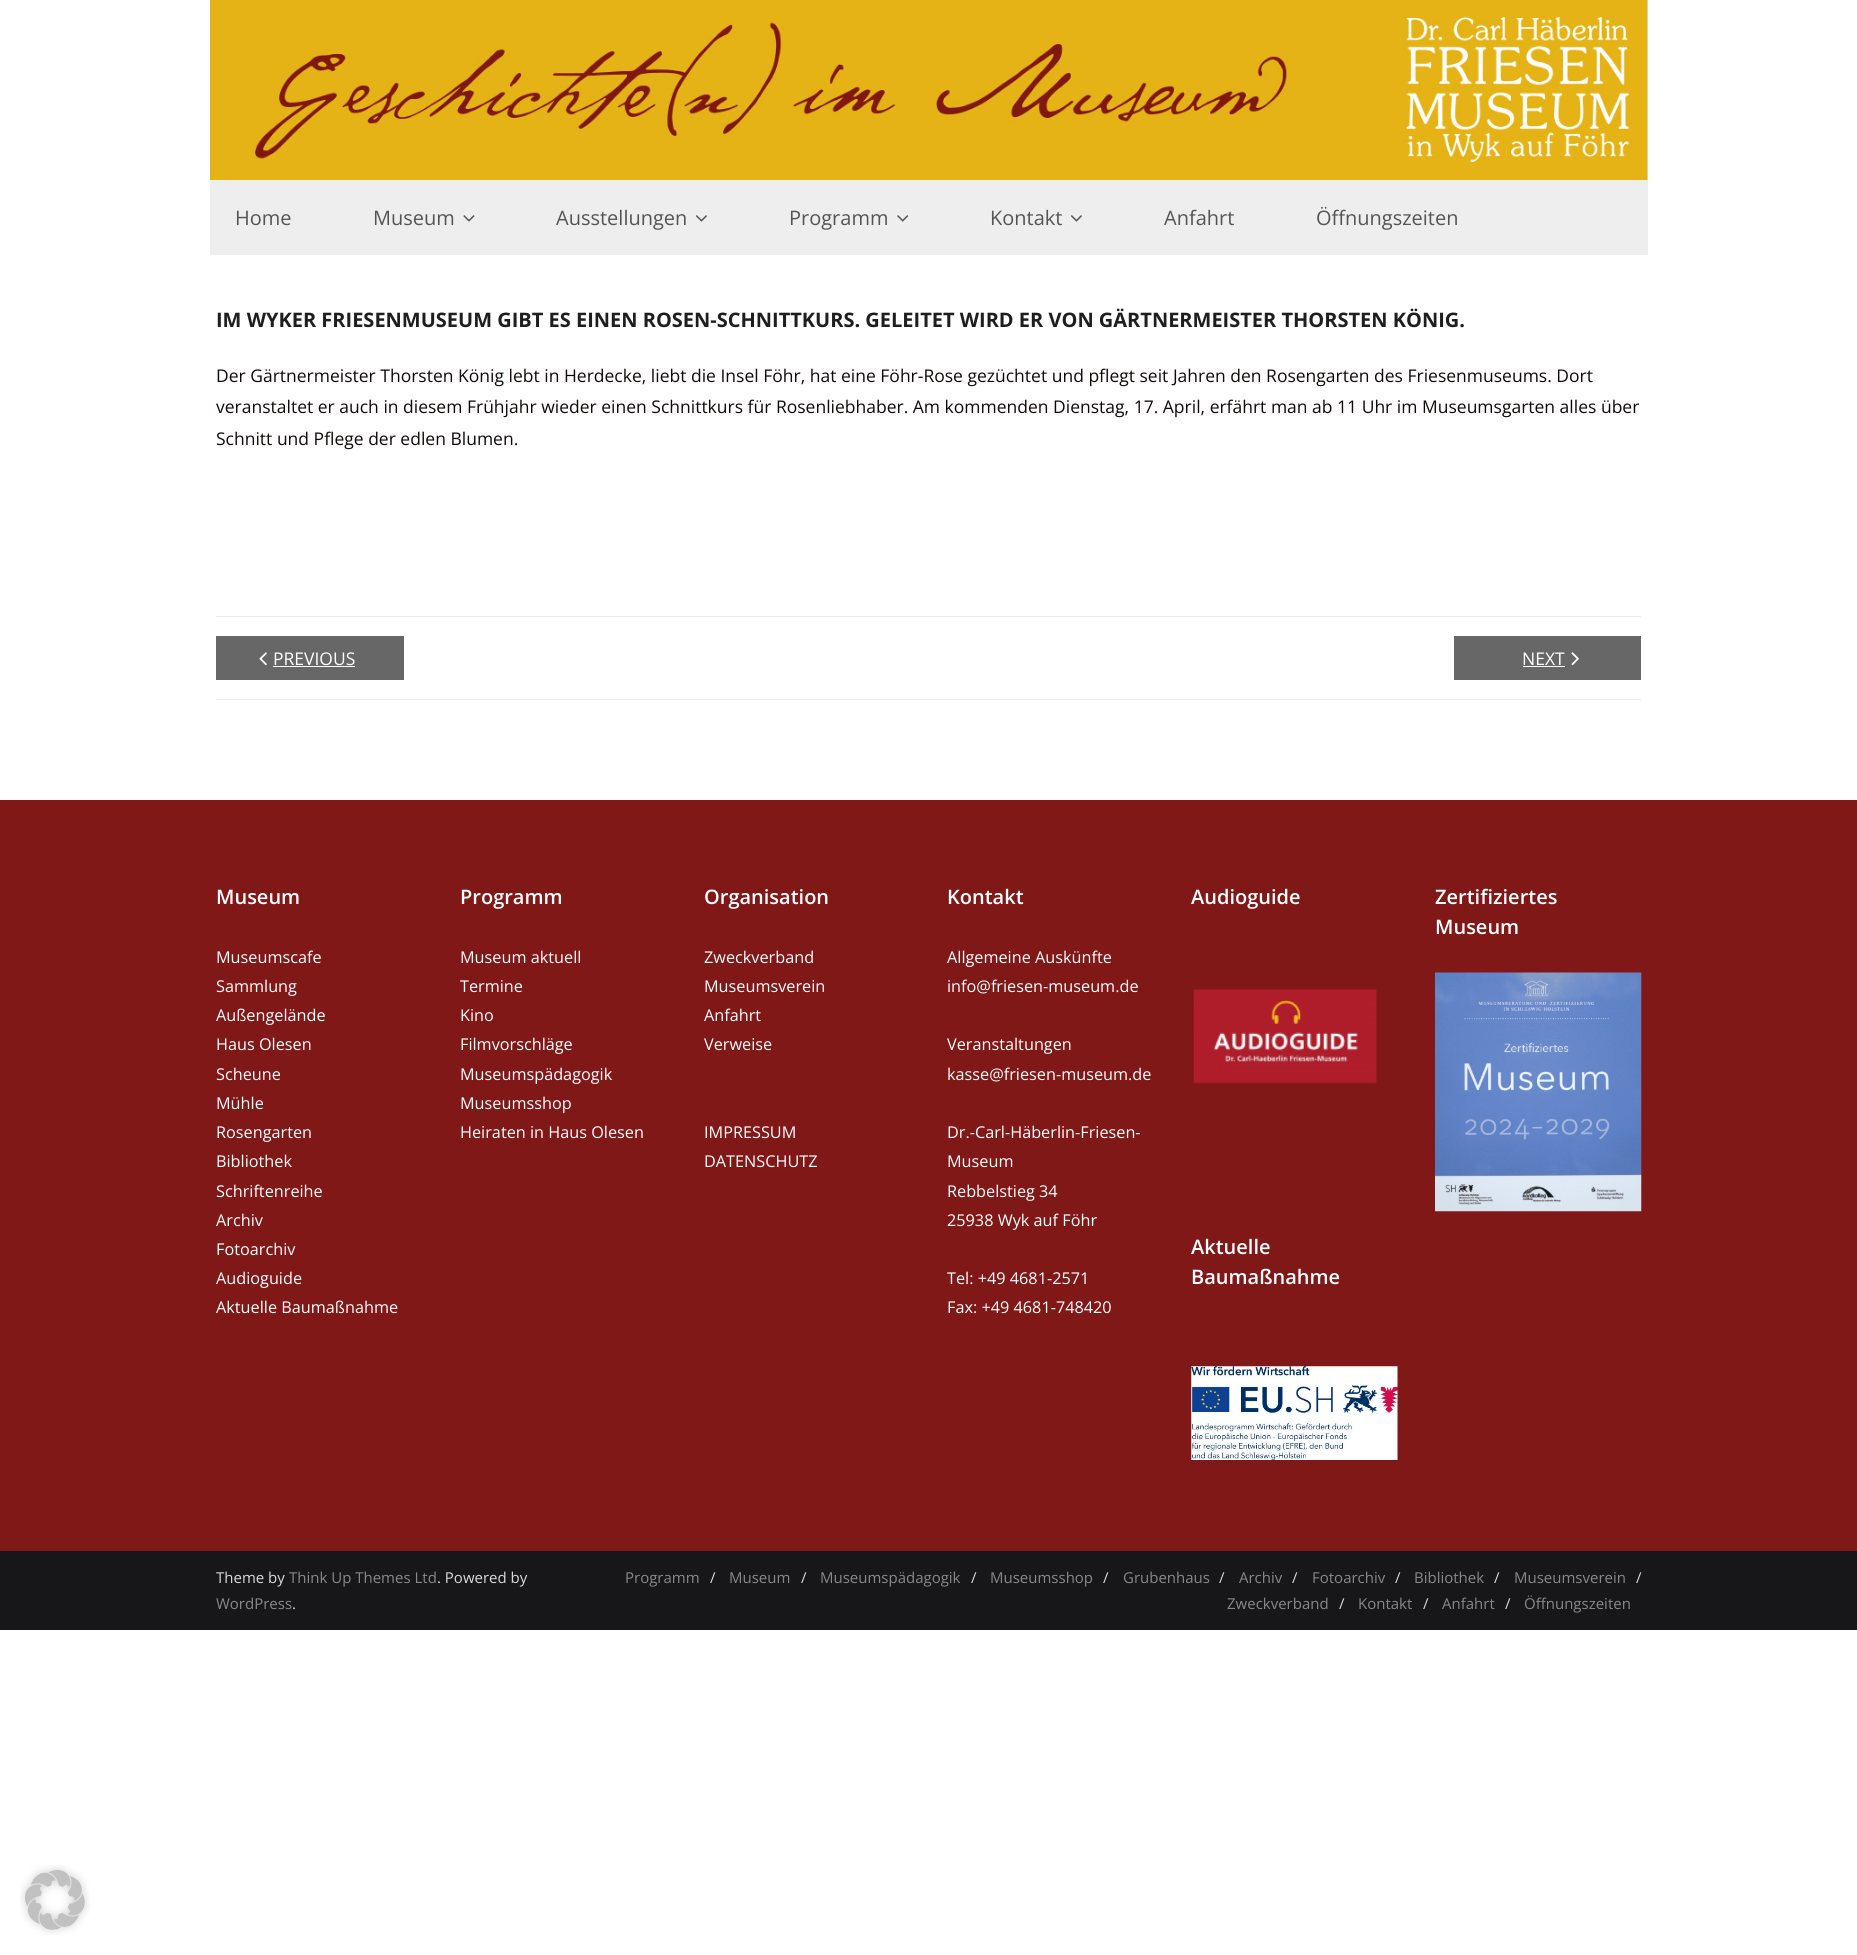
#include <cairo/cairo.h>
#include <math.h>
#include <stddef.h>


static void draw_image(cairo_t *cr, const char *path, double x, double y, double w, double h) {
  cairo_surface_t *image = cairo_image_surface_create_from_png(path);
  cairo_save(cr);
  cairo_set_source_surface(cr, image, x, y);
  cairo_rectangle(cr, x, y, w, h);
  cairo_fill(cr);
  cairo_restore(cr);
  cairo_surface_destroy(image);
}

static void draw(cairo_t *cr) {
  cairo_set_source_rgb(cr, 1, 1, 1);
  cairo_paint(cr);
  cairo_set_source_rgb(cr, 239 / 255.0, 238 / 255.0, 238 / 255.0);
  cairo_rectangle(cr, 1647, 0, 1, 180);
  cairo_fill(cr);
  draw_image(cr, "images/1.png", 210, 0, 1438, 180);
  cairo_rectangle(cr, 210, 180, 1438, 75);
  cairo_fill(cr);
  draw_image(cr, "images/2.png", 463, 215, 12, 7);
  draw_image(cr, "images/3.png", 695, 215, 12, 7);
  draw_image(cr, "images/4.png", 897, 215, 12, 7);
  draw_image(cr, "images/3.png", 1070, 215, 12, 7);
  cairo_set_source_rgb(cr, 238 / 255.0, 238 / 255.0, 238 / 255.0);
  cairo_rectangle(cr, 216, 616, 1425, 1);
  cairo_fill(cr);
  cairo_rectangle(cr, 216, 699, 1425, 1);
  cairo_fill(cr);
  cairo_set_source_rgb(cr, 103 / 255.0, 103 / 255.0, 103 / 255.0);
  cairo_rectangle(cr, 216, 636, 188, 44);
  cairo_fill(cr);
  draw_image(cr, "images/5.png", 259, 652, 8, 14);
  cairo_set_source_rgb(cr, 1, 1, 1);
  cairo_rectangle(cr, 273, 666, 82, 1);
  cairo_fill(cr);
  cairo_set_source_rgb(cr, 103 / 255.0, 103 / 255.0, 103 / 255.0);
  cairo_rectangle(cr, 1454, 636, 187, 44);
  cairo_fill(cr);
  cairo_set_source_rgb(cr, 1, 1, 1);
  cairo_rectangle(cr, 1523, 666, 42, 1);
  cairo_fill(cr);
  draw_image(cr, "images/6.png", 1571, 652, 8, 14);
  cairo_set_source_rgb(cr, 128 / 255.0, 24 / 255.0, 24 / 255.0);
  cairo_rectangle(cr, 0, 800, 1857, 751);
  cairo_fill(cr);
  draw_image(cr, "images/7.png", 1193, 988, 185, 96);
  draw_image(cr, "images/8.png", 1191, 1366, 207, 94);
  draw_image(cr, "images/9.png", 1435, 972, 207, 240);
  cairo_set_source_rgb(cr, 23 / 255.0, 23 / 255.0, 25 / 255.0);
  cairo_rectangle(cr, 0, 1551, 1857, 79);
  cairo_fill(cr);
  draw_image(cr, "images/10.png", 20, 1865, 70, 70);
  cairo_select_font_face(cr, "Open Sans", CAIRO_FONT_SLANT_NORMAL, CAIRO_FONT_WEIGHT_NORMAL);
  cairo_set_font_size(cr, 20);
  cairo_set_source_rgb(cr, 85 / 255.0, 85 / 255.0, 85 / 255.0);
  cairo_move_to(cr, 235, 225);
  cairo_show_text(cr, "Home");
  cairo_move_to(cr, 373, 225);
  cairo_show_text(cr, "Museum");
  cairo_move_to(cr, 556, 225);
  cairo_show_text(cr, "Ausstellungen");
  cairo_move_to(cr, 789, 225);
  cairo_show_text(cr, "Programm");
  cairo_move_to(cr, 990, 225);
  cairo_show_text(cr, "Kontakt");
  cairo_move_to(cr, 1164, 225);
  cairo_show_text(cr, "Anfahrt");
  cairo_move_to(cr, 1316, 225);
  cairo_show_text(cr, "Öffnungszeiten");
  cairo_select_font_face(cr, "Open Sans", CAIRO_FONT_SLANT_NORMAL, CAIRO_FONT_WEIGHT_BOLD);
  cairo_set_source_rgb(cr, 30 / 255.0, 30 / 255.0, 30 / 255.0);
  cairo_move_to(cr, 216, 327);
  cairo_show_text(cr, "IM WYKER FRIESENMUSEUM GIBT ES EINEN ROSEN-SCHNITTKURS. GELEITET WIRD ER VON GÄRTNERMEISTER THORSTEN KÖNIG.");
  cairo_select_font_face(cr, "Open Sans", CAIRO_FONT_SLANT_NORMAL, CAIRO_FONT_WEIGHT_NORMAL);
  cairo_set_font_size(cr, 17.5);
  cairo_set_source_rgb(cr, 17 / 255.0, 9 / 255.0, 9 / 255.0);
  cairo_move_to(cr, 216, 382);
  cairo_show_text(cr, "Der Gärtnermeister Thorsten König lebt in Herdecke, liebt die Insel Föhr, hat eine Föhr-Rose gezüchtet und pflegt seit Jahren den Rosengarten des Friesenmuseums. Dort");
  cairo_move_to(cr, 216, 413);
  cairo_show_text(cr, "veranstaltet er auch in diesem Frühjahr wieder einen Schnittkurs für Rosenliebhaber. Am kommenden Dienstag, 17. April, erfährt man ab 11 Uhr im Museumsgarten alles über");
  cairo_move_to(cr, 216, 445);
  cairo_show_text(cr, "Schnitt und Pflege der edlen Blumen.");
  cairo_set_source_rgb(cr, 1, 1, 1);
  cairo_move_to(cr, 273, 665);
  cairo_show_text(cr, "PREVIOUS");
  cairo_move_to(cr, 1522, 665);
  cairo_show_text(cr, "NEXT");
  cairo_select_font_face(cr, "Open Sans SemiBold", CAIRO_FONT_SLANT_NORMAL, CAIRO_FONT_WEIGHT_NORMAL);
  cairo_set_font_size(cr, 20);
  cairo_move_to(cr, 216, 904);
  cairo_show_text(cr, "Museum");
  cairo_select_font_face(cr, "Open Sans", CAIRO_FONT_SLANT_NORMAL, CAIRO_FONT_WEIGHT_NORMAL);
  cairo_set_font_size(cr, 16.25);
  cairo_move_to(cr, 216, 963);
  cairo_show_text(cr, "Museumscafe");
  cairo_move_to(cr, 216, 992);
  cairo_show_text(cr, "Sammlung");
  cairo_move_to(cr, 216, 1021);
  cairo_show_text(cr, "Außengelände");
  cairo_move_to(cr, 216, 1050);
  cairo_show_text(cr, "Haus Olesen");
  cairo_move_to(cr, 216, 1080);
  cairo_show_text(cr, "Scheune");
  cairo_move_to(cr, 216, 1109);
  cairo_show_text(cr, "Mühle");
  cairo_move_to(cr, 216, 1138);
  cairo_show_text(cr, "Rosengarten");
  cairo_move_to(cr, 216, 1167);
  cairo_show_text(cr, "Bibliothek");
  cairo_move_to(cr, 216, 1197);
  cairo_show_text(cr, "Schriftenreihe");
  cairo_move_to(cr, 216, 1226);
  cairo_show_text(cr, "Archiv");
  cairo_move_to(cr, 216, 1255);
  cairo_show_text(cr, "Fotoarchiv");
  cairo_move_to(cr, 216, 1284);
  cairo_show_text(cr, "Audioguide");
  cairo_move_to(cr, 216, 1313);
  cairo_show_text(cr, "Aktuelle Baumaßnahme");
  cairo_select_font_face(cr, "Open Sans SemiBold", CAIRO_FONT_SLANT_NORMAL, CAIRO_FONT_WEIGHT_NORMAL);
  cairo_set_font_size(cr, 20);
  cairo_move_to(cr, 460, 904);
  cairo_show_text(cr, "Programm");
  cairo_select_font_face(cr, "Open Sans", CAIRO_FONT_SLANT_NORMAL, CAIRO_FONT_WEIGHT_NORMAL);
  cairo_set_font_size(cr, 16.25);
  cairo_move_to(cr, 460, 963);
  cairo_show_text(cr, "Museum aktuell");
  cairo_move_to(cr, 460, 992);
  cairo_show_text(cr, "Termine");
  cairo_move_to(cr, 460, 1021);
  cairo_show_text(cr, "Kino");
  cairo_move_to(cr, 460, 1050);
  cairo_show_text(cr, "Filmvorschläge");
  cairo_move_to(cr, 460, 1080);
  cairo_show_text(cr, "Museumspädagogik");
  cairo_move_to(cr, 460, 1109);
  cairo_show_text(cr, "Museumsshop");
  cairo_move_to(cr, 460, 1138);
  cairo_show_text(cr, "Heiraten in Haus Olesen");
  cairo_select_font_face(cr, "Open Sans SemiBold", CAIRO_FONT_SLANT_NORMAL, CAIRO_FONT_WEIGHT_NORMAL);
  cairo_set_font_size(cr, 20);
  cairo_move_to(cr, 704, 904);
  cairo_show_text(cr, "Organisation");
  cairo_select_font_face(cr, "Open Sans", CAIRO_FONT_SLANT_NORMAL, CAIRO_FONT_WEIGHT_NORMAL);
  cairo_set_font_size(cr, 16.25);
  cairo_move_to(cr, 704, 963);
  cairo_show_text(cr, "Zweckverband");
  cairo_move_to(cr, 704, 992);
  cairo_show_text(cr, "Museumsverein");
  cairo_move_to(cr, 704, 1021);
  cairo_show_text(cr, "Anfahrt");
  cairo_move_to(cr, 704, 1050);
  cairo_show_text(cr, "Verweise");
  cairo_move_to(cr, 704, 1138);
  cairo_show_text(cr, "IMPRESSUM");
  cairo_move_to(cr, 704, 1167);
  cairo_show_text(cr, "DATENSCHUTZ");
  cairo_select_font_face(cr, "Open Sans SemiBold", CAIRO_FONT_SLANT_NORMAL, CAIRO_FONT_WEIGHT_NORMAL);
  cairo_set_font_size(cr, 20);
  cairo_move_to(cr, 947, 904);
  cairo_show_text(cr, "Kontakt");
  cairo_select_font_face(cr, "Open Sans", CAIRO_FONT_SLANT_NORMAL, CAIRO_FONT_WEIGHT_NORMAL);
  cairo_set_font_size(cr, 16.25);
  cairo_move_to(cr, 947, 963);
  cairo_show_text(cr, "Allgemeine Auskünfte");
  cairo_move_to(cr, 947, 992);
  cairo_show_text(cr, "info@friesen-museum.de");
  cairo_move_to(cr, 947, 1050);
  cairo_show_text(cr, "Veranstaltungen");
  cairo_move_to(cr, 947, 1080);
  cairo_show_text(cr, "kasse@friesen-museum.de");
  cairo_move_to(cr, 947, 1138);
  cairo_show_text(cr, "Dr.-Carl-Häberlin-Friesen-");
  cairo_move_to(cr, 947, 1167);
  cairo_show_text(cr, "Museum");
  cairo_move_to(cr, 947, 1197);
  cairo_show_text(cr, "Rebbelstieg 34");
  cairo_move_to(cr, 947, 1226);
  cairo_show_text(cr, "25938 Wyk auf Föhr");
  cairo_move_to(cr, 947, 1284);
  cairo_show_text(cr, "Tel: +49 4681-2571");
  cairo_move_to(cr, 947, 1313);
  cairo_show_text(cr, "Fax: +49 4681-748420");
  cairo_select_font_face(cr, "Open Sans SemiBold", CAIRO_FONT_SLANT_NORMAL, CAIRO_FONT_WEIGHT_NORMAL);
  cairo_set_font_size(cr, 20);
  cairo_move_to(cr, 1191, 904);
  cairo_show_text(cr, "Audioguide");
  cairo_move_to(cr, 1191, 1254);
  cairo_show_text(cr, "Aktuelle");
  cairo_move_to(cr, 1191, 1284);
  cairo_show_text(cr, "Baumaßnahme");
  cairo_move_to(cr, 1435, 904);
  cairo_show_text(cr, "Zertifiziertes");
  cairo_move_to(cr, 1435, 934);
  cairo_show_text(cr, "Museum");
  cairo_select_font_face(cr, "Open Sans", CAIRO_FONT_SLANT_NORMAL, CAIRO_FONT_WEIGHT_NORMAL);
  cairo_set_font_size(cr, 15);
  cairo_set_source_rgb(cr, 218 / 255.0, 218 / 255.0, 218 / 255.0);
  cairo_move_to(cr, 216, 1583);
  cairo_show_text(cr, "Theme by");
  cairo_set_source_rgb(cr, 136 / 255.0, 136 / 255.0, 136 / 255.0);
  cairo_move_to(cr, 289, 1583);
  cairo_show_text(cr, "Think Up Themes Ltd");
  cairo_set_source_rgb(cr, 218 / 255.0, 218 / 255.0, 218 / 255.0);
  cairo_move_to(cr, 437, 1583);
  cairo_show_text(cr, ". Powered by");
  cairo_set_source_rgb(cr, 136 / 255.0, 136 / 255.0, 136 / 255.0);
  cairo_move_to(cr, 216, 1609);
  cairo_show_text(cr, "WordPress");
  cairo_set_source_rgb(cr, 218 / 255.0, 218 / 255.0, 218 / 255.0);
  cairo_move_to(cr, 292, 1609);
  cairo_show_text(cr, ".");
  cairo_set_source_rgb(cr, 136 / 255.0, 136 / 255.0, 136 / 255.0);
  cairo_move_to(cr, 625, 1583);
  cairo_show_text(cr, "Programm");
  cairo_set_source_rgb(cr, 218 / 255.0, 218 / 255.0, 218 / 255.0);
  cairo_move_to(cr, 710, 1583);
  cairo_show_text(cr, "/");
  cairo_set_source_rgb(cr, 136 / 255.0, 136 / 255.0, 136 / 255.0);
  cairo_move_to(cr, 729, 1583);
  cairo_show_text(cr, "Museum");
  cairo_set_source_rgb(cr, 218 / 255.0, 218 / 255.0, 218 / 255.0);
  cairo_move_to(cr, 801, 1583);
  cairo_show_text(cr, "/");
  cairo_set_source_rgb(cr, 136 / 255.0, 136 / 255.0, 136 / 255.0);
  cairo_move_to(cr, 820, 1583);
  cairo_show_text(cr, "Museumspädagogik");
  cairo_set_source_rgb(cr, 218 / 255.0, 218 / 255.0, 218 / 255.0);
  cairo_move_to(cr, 971, 1583);
  cairo_show_text(cr, "/");
  cairo_set_source_rgb(cr, 136 / 255.0, 136 / 255.0, 136 / 255.0);
  cairo_move_to(cr, 990, 1583);
  cairo_show_text(cr, "Museumsshop");
  cairo_set_source_rgb(cr, 218 / 255.0, 218 / 255.0, 218 / 255.0);
  cairo_move_to(cr, 1103, 1583);
  cairo_show_text(cr, "/");
  cairo_set_source_rgb(cr, 136 / 255.0, 136 / 255.0, 136 / 255.0);
  cairo_move_to(cr, 1123, 1583);
  cairo_show_text(cr, "Grubenhaus");
  cairo_set_source_rgb(cr, 218 / 255.0, 218 / 255.0, 218 / 255.0);
  cairo_move_to(cr, 1219, 1583);
  cairo_show_text(cr, "/");
  cairo_set_source_rgb(cr, 136 / 255.0, 136 / 255.0, 136 / 255.0);
  cairo_move_to(cr, 1239, 1583);
  cairo_show_text(cr, "Archiv");
  cairo_set_source_rgb(cr, 218 / 255.0, 218 / 255.0, 218 / 255.0);
  cairo_move_to(cr, 1292, 1583);
  cairo_show_text(cr, "/");
  cairo_set_source_rgb(cr, 136 / 255.0, 136 / 255.0, 136 / 255.0);
  cairo_move_to(cr, 1312, 1583);
  cairo_show_text(cr, "Fotoarchiv");
  cairo_set_source_rgb(cr, 218 / 255.0, 218 / 255.0, 218 / 255.0);
  cairo_move_to(cr, 1395, 1583);
  cairo_show_text(cr, "/");
  cairo_set_source_rgb(cr, 136 / 255.0, 136 / 255.0, 136 / 255.0);
  cairo_move_to(cr, 1414, 1583);
  cairo_show_text(cr, "Bibliothek");
  cairo_set_source_rgb(cr, 218 / 255.0, 218 / 255.0, 218 / 255.0);
  cairo_move_to(cr, 1494, 1583);
  cairo_show_text(cr, "/");
  cairo_set_source_rgb(cr, 136 / 255.0, 136 / 255.0, 136 / 255.0);
  cairo_move_to(cr, 1514, 1583);
  cairo_show_text(cr, "Museumsverein");
  cairo_set_source_rgb(cr, 218 / 255.0, 218 / 255.0, 218 / 255.0);
  cairo_move_to(cr, 1636, 1583);
  cairo_show_text(cr, "/");
  cairo_set_source_rgb(cr, 136 / 255.0, 136 / 255.0, 136 / 255.0);
  cairo_move_to(cr, 1227, 1609);
  cairo_show_text(cr, "Zweckverband");
  cairo_set_source_rgb(cr, 218 / 255.0, 218 / 255.0, 218 / 255.0);
  cairo_move_to(cr, 1339, 1609);
  cairo_show_text(cr, "/");
  cairo_set_source_rgb(cr, 136 / 255.0, 136 / 255.0, 136 / 255.0);
  cairo_move_to(cr, 1358, 1609);
  cairo_show_text(cr, "Kontakt");
  cairo_set_source_rgb(cr, 218 / 255.0, 218 / 255.0, 218 / 255.0);
  cairo_move_to(cr, 1423, 1609);
  cairo_show_text(cr, "/");
  cairo_set_source_rgb(cr, 136 / 255.0, 136 / 255.0, 136 / 255.0);
  cairo_move_to(cr, 1442, 1609);
  cairo_show_text(cr, "Anfahrt");
  cairo_set_source_rgb(cr, 218 / 255.0, 218 / 255.0, 218 / 255.0);
  cairo_move_to(cr, 1505, 1609);
  cairo_show_text(cr, "/");
  cairo_set_source_rgb(cr, 136 / 255.0, 136 / 255.0, 136 / 255.0);
  cairo_move_to(cr, 1524, 1609);
  cairo_show_text(cr, "Öffnungszeiten");
}

int main(void) {
  cairo_surface_t *surface = cairo_image_surface_create(CAIRO_FORMAT_RGB24, 1857, 1955);
  cairo_t *cr = cairo_create(surface);
  cairo_font_options_t *options = cairo_font_options_create();
  cairo_font_options_set_hint_metrics(options, CAIRO_HINT_METRICS_OFF);
  cairo_font_options_set_hint_style(options, CAIRO_HINT_STYLE_NONE);
  cairo_set_font_options(cr, options);
  cairo_set_miter_limit(cr, 4);
  draw(cr);
  cairo_surface_write_to_png(surface, "out.png");
  cairo_font_options_destroy(options);
  cairo_destroy(cr);
  cairo_surface_destroy(surface);
  return 0;
}
